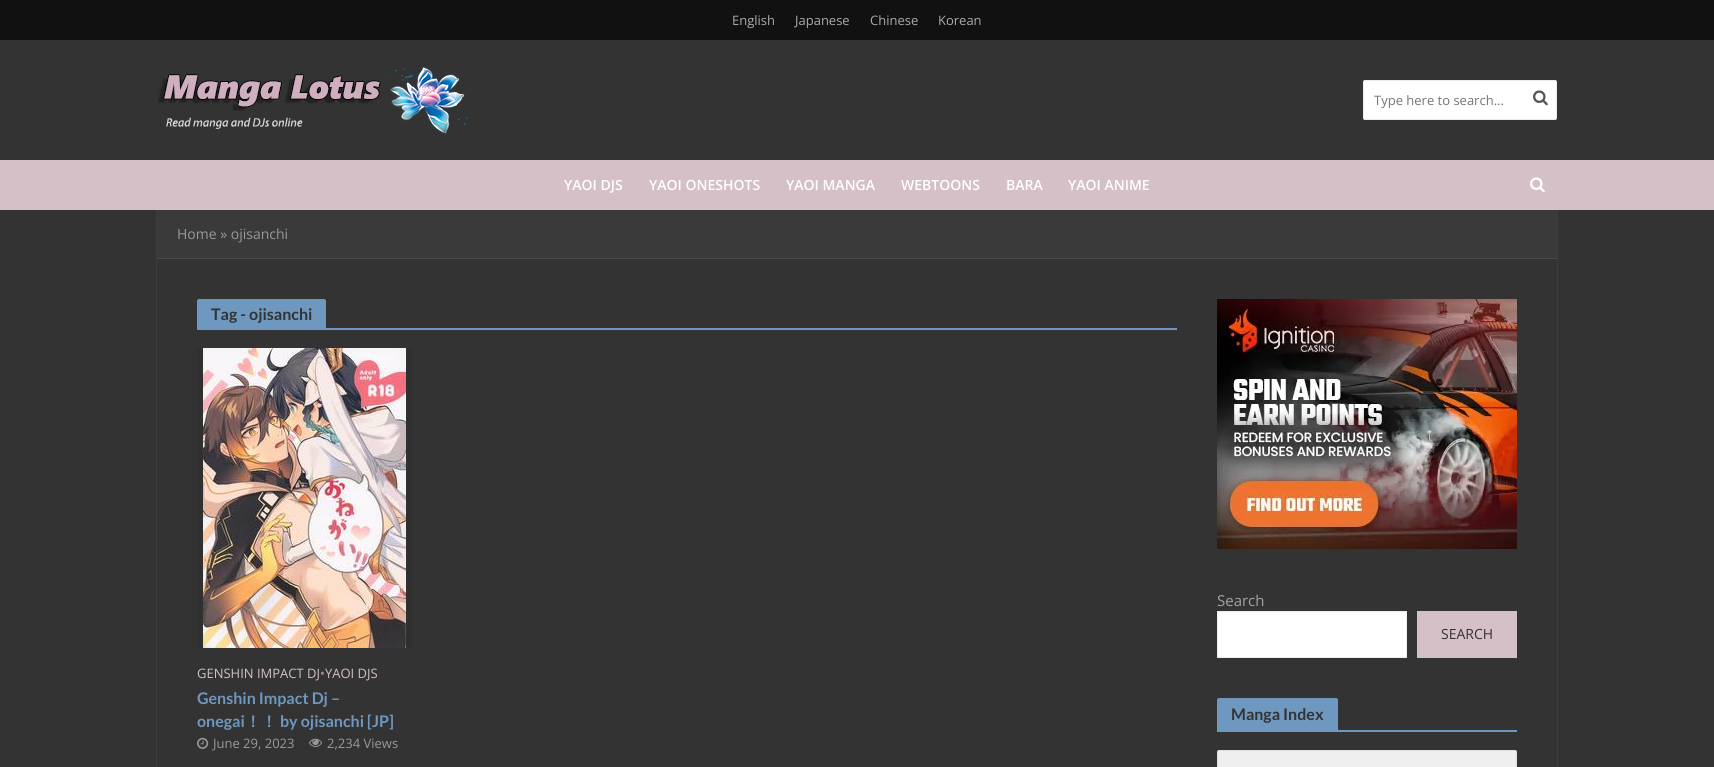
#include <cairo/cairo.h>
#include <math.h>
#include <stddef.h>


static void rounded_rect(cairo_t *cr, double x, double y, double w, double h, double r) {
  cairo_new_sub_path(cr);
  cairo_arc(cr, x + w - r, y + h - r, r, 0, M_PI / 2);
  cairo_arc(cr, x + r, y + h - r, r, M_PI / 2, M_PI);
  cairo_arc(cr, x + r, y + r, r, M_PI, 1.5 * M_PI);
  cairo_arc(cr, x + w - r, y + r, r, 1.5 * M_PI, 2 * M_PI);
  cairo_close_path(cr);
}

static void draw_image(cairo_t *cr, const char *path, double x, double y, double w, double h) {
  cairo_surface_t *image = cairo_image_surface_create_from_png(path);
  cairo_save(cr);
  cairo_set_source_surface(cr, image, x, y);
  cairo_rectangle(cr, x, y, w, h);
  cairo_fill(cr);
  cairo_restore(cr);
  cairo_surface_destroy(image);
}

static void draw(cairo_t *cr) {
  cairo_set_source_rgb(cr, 51 / 255.0, 51 / 255.0, 51 / 255.0);
  cairo_paint(cr);
  cairo_set_source_rgb(cr, 17 / 255.0, 17 / 255.0, 17 / 255.0);
  cairo_rectangle(cr, 0, 0, 1714, 40);
  cairo_fill(cr);
  draw_image(cr, "images/1.png", 158, 67, 310, 67);
  cairo_set_source_rgb(cr, 1, 1, 1);
  rounded_rect(cr, 1363, 80, 194, 40, 2);
  cairo_fill(cr);
  rounded_rect(cr, 1363.5, 80.5, 193, 39, 1.5);
  cairo_set_source_rgba(cr, 163 / 255.0, 163 / 255.0, 163 / 255.0, 0.2);
  cairo_set_line_width(cr, 1);
  cairo_stroke(cr);
  draw_image(cr, "images/2.png", 1533, 90, 15, 16);
  cairo_rectangle(cr, 156.5, 209.5, 1401, 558);
  cairo_set_source_rgb(cr, 62 / 255.0, 62 / 255.0, 62 / 255.0);
  cairo_stroke(cr);
  cairo_set_source_rgb(cr, 212 / 255.0, 192 / 255.0, 198 / 255.0);
  cairo_rectangle(cr, 0, 160, 1714, 50);
  cairo_fill(cr);
  draw_image(cr, "images/3.png", 1530, 177, 15, 16);
  cairo_set_source_rgb(cr, 58 / 255.0, 58 / 255.0, 58 / 255.0);
  cairo_rectangle(cr, 157, 210, 1400, 48);
  cairo_fill(cr);
  cairo_set_source_rgb(cr, 74 / 255.0, 74 / 255.0, 74 / 255.0);
  cairo_rectangle(cr, 157, 258, 1400, 1);
  cairo_fill(cr);
  cairo_set_source_rgb(cr, 110 / 255.0, 152 / 255.0, 191 / 255.0);
  cairo_new_path(cr);
  cairo_move_to(cr, 199, 299);
  cairo_line_to(cr, 324, 299);
  cairo_curve_to(cr, 325, 299, 326, 300, 326, 301);
  cairo_line_to(cr, 326, 328);
  cairo_line_to(cr, 197, 328);
  cairo_line_to(cr, 197, 301);
  cairo_curve_to(cr, 197, 300, 198, 299, 199, 299);
  cairo_close_path(cr);
  cairo_fill(cr);
  cairo_rectangle(cr, 197, 328, 980, 2);
  cairo_fill(cr);
  cairo_set_source_rgb(cr, 48 / 255.0, 48 / 255.0, 48 / 255.0);
  cairo_rectangle(cr, 197, 348, 215, 300);
  cairo_fill(cr);
  draw_image(cr, "images/4.png", 203, 348, 203, 300);
  draw_image(cr, "images/5.png", 197, 737, 12, 12);
  draw_image(cr, "images/6.png", 309, 738, 13, 9);
  draw_image(cr, "images/7.png", 1217, 299, 300, 250);
  cairo_set_source_rgb(cr, 1, 1, 1);
  cairo_rectangle(cr, 1217.5, 611.5, 189, 46);
  cairo_fill_preserve(cr);
  cairo_set_source_rgb(cr, 237 / 255.0, 237 / 255.0, 237 / 255.0);
  cairo_stroke(cr);
  cairo_set_source_rgb(cr, 212 / 255.0, 192 / 255.0, 198 / 255.0);
  cairo_rectangle(cr, 1417, 611, 100, 47);
  cairo_fill(cr);
  cairo_set_source_rgb(cr, 110 / 255.0, 152 / 255.0, 191 / 255.0);
  cairo_new_path(cr);
  cairo_move_to(cr, 1219, 698);
  cairo_line_to(cr, 1336, 698);
  cairo_curve_to(cr, 1337, 698, 1338, 699, 1338, 700);
  cairo_line_to(cr, 1338, 730);
  cairo_line_to(cr, 1217, 730);
  cairo_line_to(cr, 1217, 700);
  cairo_curve_to(cr, 1217, 699, 1218, 698, 1219, 698);
  cairo_close_path(cr);
  cairo_fill(cr);
  cairo_rectangle(cr, 1217, 730, 300, 2);
  cairo_fill(cr);
  cairo_set_source_rgb(cr, 239 / 255.0, 239 / 255.0, 239 / 255.0);
  rounded_rect(cr, 1217, 750, 300, 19, 2);
  cairo_fill(cr);
  rounded_rect(cr, 1217.5, 750.5, 299, 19, 1.5);
  cairo_set_source_rgba(cr, 163 / 255.0, 163 / 255.0, 163 / 255.0, 0.2);
  cairo_stroke(cr);
  cairo_select_font_face(cr, "Open Sans", CAIRO_FONT_SLANT_NORMAL, CAIRO_FONT_WEIGHT_NORMAL);
  cairo_set_font_size(cr, 13);
  cairo_set_source_rgb(cr, 170 / 255.0, 170 / 255.0, 170 / 255.0);
  cairo_move_to(cr, 732, 25);
  cairo_show_text(cr, "English");
  cairo_move_to(cr, 795, 25);
  cairo_show_text(cr, "Japanese");
  cairo_move_to(cr, 870, 25);
  cairo_show_text(cr, "Chinese");
  cairo_move_to(cr, 938, 25);
  cairo_show_text(cr, "Korean");
  cairo_set_source_rgb(cr, 117 / 255.0, 117 / 255.0, 117 / 255.0);
  cairo_move_to(cr, 1374, 105);
  cairo_show_text(cr, "Type here to search...");
  cairo_select_font_face(cr, "Open Sans SemiBold", CAIRO_FONT_SLANT_NORMAL, CAIRO_FONT_WEIGHT_NORMAL);
  cairo_set_font_size(cr, 14);
  cairo_set_source_rgb(cr, 1, 1, 1);
  cairo_move_to(cr, 564, 190);
  cairo_show_text(cr, "YAOI DJS");
  cairo_move_to(cr, 649, 190);
  cairo_show_text(cr, "YAOI ONESHOTS");
  cairo_move_to(cr, 786, 190);
  cairo_show_text(cr, "YAOI MANGA");
  cairo_move_to(cr, 901, 190);
  cairo_show_text(cr, "WEBTOONS");
  cairo_move_to(cr, 1006, 190);
  cairo_show_text(cr, "BARA");
  cairo_move_to(cr, 1068, 190);
  cairo_show_text(cr, "YAOI ANIME");
  cairo_select_font_face(cr, "Open Sans", CAIRO_FONT_SLANT_NORMAL, CAIRO_FONT_WEIGHT_NORMAL);
  cairo_set_source_rgb(cr, 153 / 255.0, 153 / 255.0, 153 / 255.0);
  cairo_move_to(cr, 177, 239);
  cairo_show_text(cr, "Home » ojisanchi");
  cairo_select_font_face(cr, "Lato", CAIRO_FONT_SLANT_NORMAL, CAIRO_FONT_WEIGHT_BOLD);
  cairo_set_font_size(cr, 16);
  cairo_set_source_rgb(cr, 51 / 255.0, 51 / 255.0, 51 / 255.0);
  cairo_move_to(cr, 211, 320);
  cairo_show_text(cr, "Tag - ojisanchi");
  cairo_select_font_face(cr, "Open Sans", CAIRO_FONT_SLANT_NORMAL, CAIRO_FONT_WEIGHT_NORMAL);
  cairo_set_font_size(cr, 13);
  cairo_set_source_rgb(cr, 212 / 255.0, 192 / 255.0, 198 / 255.0);
  cairo_move_to(cr, 197, 678);
  cairo_show_text(cr, "GENSHIN IMPACT DJ");
  cairo_set_source_rgb(cr, 153 / 255.0, 153 / 255.0, 153 / 255.0);
  cairo_move_to(cr, 320, 678);
  cairo_show_text(cr, "•");
  cairo_set_source_rgb(cr, 212 / 255.0, 192 / 255.0, 198 / 255.0);
  cairo_move_to(cr, 325, 678);
  cairo_show_text(cr, "YAOI DJS");
  cairo_select_font_face(cr, "Lato", CAIRO_FONT_SLANT_NORMAL, CAIRO_FONT_WEIGHT_BOLD);
  cairo_set_font_size(cr, 16);
  cairo_set_source_rgb(cr, 110 / 255.0, 152 / 255.0, 191 / 255.0);
  cairo_move_to(cr, 197, 704);
  cairo_show_text(cr, "Genshin Impact Dj –");
  cairo_move_to(cr, 197, 727);
  cairo_show_text(cr, "onegai");
  cairo_select_font_face(cr, "WenQuanYi Zen Hei", CAIRO_FONT_SLANT_NORMAL, CAIRO_FONT_WEIGHT_BOLD);
  cairo_move_to(cr, 245, 727);
  cairo_show_text(cr, "！！");
  cairo_select_font_face(cr, "Lato", CAIRO_FONT_SLANT_NORMAL, CAIRO_FONT_WEIGHT_BOLD);
  cairo_move_to(cr, 280, 727);
  cairo_show_text(cr, "by ojisanchi [JP]");
  cairo_select_font_face(cr, "Open Sans", CAIRO_FONT_SLANT_NORMAL, CAIRO_FONT_WEIGHT_NORMAL);
  cairo_set_font_size(cr, 13);
  cairo_set_source_rgb(cr, 153 / 255.0, 153 / 255.0, 153 / 255.0);
  cairo_move_to(cr, 213, 748);
  cairo_show_text(cr, "June 29, 2023");
  cairo_move_to(cr, 327, 748);
  cairo_show_text(cr, "2,234 Views");
  cairo_set_font_size(cr, 15);
  cairo_set_source_rgb(cr, 163 / 255.0, 163 / 255.0, 163 / 255.0);
  cairo_move_to(cr, 1217, 606);
  cairo_show_text(cr, "Search");
  cairo_set_font_size(cr, 14);
  cairo_set_source_rgb(cr, 51 / 255.0, 51 / 255.0, 51 / 255.0);
  cairo_move_to(cr, 1441, 639);
  cairo_show_text(cr, "SEARCH");
  cairo_select_font_face(cr, "Lato", CAIRO_FONT_SLANT_NORMAL, CAIRO_FONT_WEIGHT_BOLD);
  cairo_set_font_size(cr, 16);
  cairo_move_to(cr, 1231, 720);
  cairo_show_text(cr, "Manga Index");
}

int main(void) {
  cairo_surface_t *surface = cairo_image_surface_create(CAIRO_FORMAT_RGB24, 1714, 767);
  cairo_t *cr = cairo_create(surface);
  cairo_font_options_t *options = cairo_font_options_create();
  cairo_font_options_set_hint_metrics(options, CAIRO_HINT_METRICS_OFF);
  cairo_font_options_set_hint_style(options, CAIRO_HINT_STYLE_NONE);
  cairo_set_font_options(cr, options);
  cairo_set_miter_limit(cr, 4);
  draw(cr);
  cairo_surface_write_to_png(surface, "out.png");
  cairo_font_options_destroy(options);
  cairo_destroy(cr);
  cairo_surface_destroy(surface);
  return 0;
}
